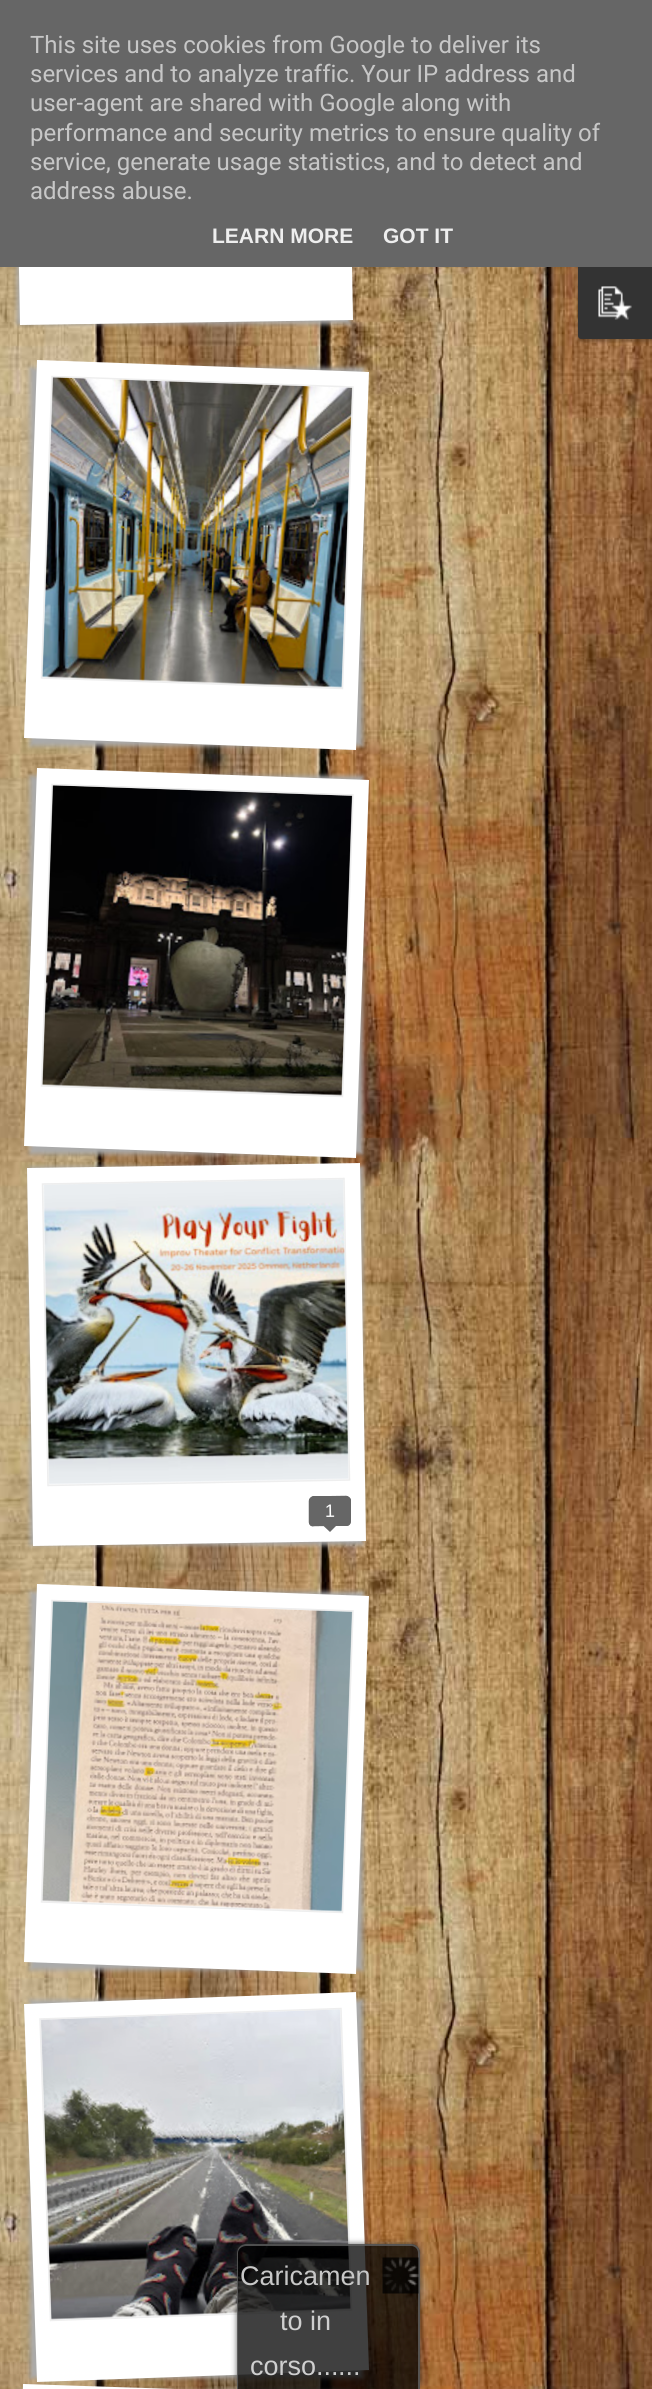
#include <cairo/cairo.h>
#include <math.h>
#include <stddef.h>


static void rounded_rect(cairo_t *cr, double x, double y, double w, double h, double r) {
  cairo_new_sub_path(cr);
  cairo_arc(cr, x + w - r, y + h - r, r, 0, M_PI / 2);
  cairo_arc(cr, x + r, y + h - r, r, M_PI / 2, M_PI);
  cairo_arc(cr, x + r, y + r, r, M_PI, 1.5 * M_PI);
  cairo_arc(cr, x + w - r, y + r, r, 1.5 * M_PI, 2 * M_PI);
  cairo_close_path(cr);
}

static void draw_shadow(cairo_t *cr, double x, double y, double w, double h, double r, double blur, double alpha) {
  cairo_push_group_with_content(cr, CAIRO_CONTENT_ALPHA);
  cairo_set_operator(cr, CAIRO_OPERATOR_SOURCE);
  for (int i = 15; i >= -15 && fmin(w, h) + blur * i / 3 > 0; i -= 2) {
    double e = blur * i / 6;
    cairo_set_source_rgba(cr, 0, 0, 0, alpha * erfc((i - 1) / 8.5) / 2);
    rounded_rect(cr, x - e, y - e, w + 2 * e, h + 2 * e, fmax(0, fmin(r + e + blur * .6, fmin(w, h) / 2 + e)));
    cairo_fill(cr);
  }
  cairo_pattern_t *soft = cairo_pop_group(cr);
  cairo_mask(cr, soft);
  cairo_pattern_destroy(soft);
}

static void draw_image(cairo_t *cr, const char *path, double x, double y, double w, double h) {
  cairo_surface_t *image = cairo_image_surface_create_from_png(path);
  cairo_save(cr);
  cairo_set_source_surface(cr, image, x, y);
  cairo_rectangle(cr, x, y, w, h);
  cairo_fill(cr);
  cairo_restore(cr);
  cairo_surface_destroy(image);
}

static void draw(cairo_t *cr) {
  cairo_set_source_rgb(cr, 1, 1, 1);
  cairo_paint(cr);
  draw_image(cr, "images/1.png", 0, 267, 652, 2122);
  cairo_set_source_rgb(cr, 0, 0, 0);
  draw_shadow(cr, 578, 188, 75, 153, 3, 2, 0.3);
  cairo_set_source_rgb(cr, 51 / 255.0, 51 / 255.0, 51 / 255.0);
  cairo_new_path(cr);
  cairo_move_to(cr, 578, 263);
  cairo_line_to(cr, 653, 263);
  cairo_line_to(cr, 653, 339);
  cairo_line_to(cr, 581, 339);
  cairo_curve_to(cr, 579.5, 339, 578, 337.5, 578, 336);
  cairo_close_path(cr);
  cairo_fill(cr);
  cairo_set_source_rgb(cr, 170 / 255.0, 170 / 255.0, 170 / 255.0);
  draw_shadow(cr, 17, -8, 333, 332, 0, 2.5, 1);
  cairo_set_source_rgb(cr, 1, 1, 1);
  cairo_new_path(cr);
  cairo_move_to(cr, 13, -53);
  cairo_line_to(cr, 346, -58);
  cairo_line_to(cr, 353, 320);
  cairo_line_to(cr, 20, 325);
  cairo_close_path(cr);
  cairo_fill(cr);
  cairo_set_source_rgb(cr, 102 / 255.0, 102 / 255.0, 102 / 255.0);
  cairo_rectangle(cr, 0, 0, 652, 267);
  cairo_fill(cr);
  draw_image(cr, "images/2.png", 598, 286, 34, 34);
  cairo_set_source_rgb(cr, 170 / 255.0, 170 / 255.0, 170 / 255.0);
  draw_shadow(cr, 30, 368, 333, 378, 0, 2.5, 1);
  cairo_set_source_rgb(cr, 1, 1, 1);
  cairo_new_path(cr);
  cairo_move_to(cr, 37, 360);
  cairo_line_to(cr, 369, 372);
  cairo_line_to(cr, 356, 750);
  cairo_line_to(cr, 24, 738);
  cairo_close_path(cr);
  cairo_fill(cr);
  draw_image(cr, "images/3.png", 41, 376, 312, 312);
  cairo_new_path(cr);
  cairo_move_to(cr, 52, 376.5);
  cairo_line_to(cr, 353, 387);
  cairo_line_to(cr, 342.5, 688.5);
  cairo_line_to(cr, 41.5, 678);
  cairo_close_path(cr);
  cairo_set_source_rgb(cr, 238 / 255.0, 238 / 255.0, 238 / 255.0);
  cairo_set_line_width(cr, 1.5);
  cairo_stroke(cr);
  cairo_set_source_rgb(cr, 170 / 255.0, 170 / 255.0, 170 / 255.0);
  draw_shadow(cr, 30, 776, 333, 378, 0, 2.5, 1);
  cairo_set_source_rgb(cr, 1, 1, 1);
  cairo_new_path(cr);
  cairo_move_to(cr, 37, 768);
  cairo_line_to(cr, 369, 780);
  cairo_line_to(cr, 356, 1158);
  cairo_line_to(cr, 24, 1146);
  cairo_close_path(cr);
  cairo_fill(cr);
  draw_image(cr, "images/4.png", 41, 784, 312, 312);
  cairo_new_path(cr);
  cairo_move_to(cr, 52, 784.5);
  cairo_line_to(cr, 353, 795);
  cairo_line_to(cr, 342.5, 1096.5);
  cairo_line_to(cr, 41.5, 1086);
  cairo_close_path(cr);
  cairo_set_source_rgb(cr, 238 / 255.0, 238 / 255.0, 238 / 255.0);
  cairo_stroke(cr);
  cairo_set_source_rgb(cr, 170 / 255.0, 170 / 255.0, 170 / 255.0);
  draw_shadow(cr, 30, 1167, 333, 378, 0, 2.5, 1);
  cairo_set_source_rgb(cr, 1, 1, 1);
  cairo_new_path(cr);
  cairo_move_to(cr, 27, 1168);
  cairo_line_to(cr, 360, 1163);
  cairo_line_to(cr, 366, 1541);
  cairo_line_to(cr, 33, 1546);
  cairo_close_path(cr);
  cairo_fill(cr);
  draw_image(cr, "images/5.png", 43, 1178, 306, 307);
  cairo_new_path(cr);
  cairo_move_to(cr, 42.5, 1184);
  cairo_line_to(cr, 344, 1178.5);
  cairo_line_to(cr, 349.5, 1480);
  cairo_line_to(cr, 48, 1485.5);
  cairo_close_path(cr);
  cairo_set_source_rgb(cr, 238 / 255.0, 238 / 255.0, 238 / 255.0);
  cairo_stroke(cr);
  cairo_set_source_rgb(cr, 102 / 255.0, 102 / 255.0, 102 / 255.0);
  cairo_new_path(cr);
  cairo_move_to(cr, 313, 1496);
  cairo_line_to(cr, 346, 1496);
  cairo_curve_to(cr, 348, 1496, 351, 1498, 351, 1500);
  cairo_line_to(cr, 351, 1521);
  cairo_curve_to(cr, 351, 1524, 349, 1526, 347, 1526);
  cairo_line_to(cr, 314, 1526);
  cairo_curve_to(cr, 311, 1527, 309, 1525, 309, 1522);
  cairo_line_to(cr, 309, 1501);
  cairo_curve_to(cr, 309, 1499, 311, 1497, 313, 1496);
  cairo_close_path(cr);
  cairo_fill(cr);
  cairo_new_path(cr);
  cairo_move_to(cr, 313, 1497);
  cairo_line_to(cr, 346, 1496.5);
  cairo_curve_to(cr, 348, 1496.5, 350, 1498.5, 350, 1500.5);
  cairo_line_to(cr, 350, 1521.5);
  cairo_curve_to(cr, 350, 1523.5, 348.5, 1525, 346.5, 1525);
  cairo_line_to(cr, 313.5, 1525.5);
  cairo_curve_to(cr, 311.5, 1526, 309.5, 1524, 309.5, 1522);
  cairo_line_to(cr, 309.5, 1501);
  cairo_curve_to(cr, 309.5, 1499, 311, 1497.5, 313, 1497);
  cairo_close_path(cr);
  cairo_stroke(cr);
  cairo_new_path(cr);
  cairo_move_to(cr, 322.5, 1525);
  cairo_line_to(cr, 337.5, 1524.5);
  cairo_line_to(cr, 330, 1532);
  cairo_close_path(cr);
  cairo_fill(cr);
  cairo_set_source_rgb(cr, 170 / 255.0, 170 / 255.0, 170 / 255.0);
  draw_shadow(cr, 30, 1592, 333, 378, 0, 2.5, 1);
  cairo_set_source_rgb(cr, 1, 1, 1);
  cairo_new_path(cr);
  cairo_move_to(cr, 37, 1584);
  cairo_line_to(cr, 369, 1596);
  cairo_line_to(cr, 356, 1974);
  cairo_line_to(cr, 24, 1962);
  cairo_close_path(cr);
  cairo_fill(cr);
  draw_image(cr, "images/6.png", 41, 1600, 312, 312);
  cairo_new_path(cr);
  cairo_move_to(cr, 52, 1600.5);
  cairo_line_to(cr, 353, 1611);
  cairo_line_to(cr, 342.5, 1912.5);
  cairo_line_to(cr, 41.5, 1902);
  cairo_close_path(cr);
  cairo_set_source_rgb(cr, 238 / 255.0, 238 / 255.0, 238 / 255.0);
  cairo_stroke(cr);
  cairo_set_source_rgb(cr, 170 / 255.0, 170 / 255.0, 170 / 255.0);
  draw_shadow(cr, 30, 2000, 333, 378, 0, 2.5, 1);
  cairo_set_source_rgb(cr, 1, 1, 1);
  cairo_new_path(cr);
  cairo_move_to(cr, 24, 2004);
  cairo_line_to(cr, 356, 1992);
  cairo_line_to(cr, 369, 2370);
  cairo_line_to(cr, 37, 2382);
  cairo_close_path(cr);
  cairo_fill(cr);
  draw_image(cr, "images/7.png", 40, 2008, 312, 312);
  cairo_new_path(cr);
  cairo_move_to(cr, 40, 2019);
  cairo_line_to(cr, 341, 2008.5);
  cairo_line_to(cr, 351.5, 2310);
  cairo_line_to(cr, 50.5, 2320.5);
  cairo_close_path(cr);
  cairo_set_source_rgb(cr, 238 / 255.0, 238 / 255.0, 238 / 255.0);
  cairo_stroke(cr);
  cairo_set_source_rgb(cr, 170 / 255.0, 170 / 255.0, 170 / 255.0);
  draw_shadow(cr, 17, 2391, 333, 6, 0, 2.5, 1);
  cairo_set_source_rgb(cr, 1, 1, 1);
  cairo_new_path(cr);
  cairo_move_to(cr, 23, 2384);
  cairo_line_to(cr, 356, 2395);
  cairo_line_to(cr, 343, 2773);
  cairo_line_to(cr, 10, 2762);
  cairo_close_path(cr);
  cairo_fill(cr);
  cairo_save(cr);
  cairo_set_fill_rule(cr, CAIRO_FILL_RULE_EVEN_ODD);
  cairo_new_path(cr);
  cairo_move_to(cr, 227, 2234);
  cairo_line_to(cr, 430, 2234);
  cairo_line_to(cr, 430, 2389);
  cairo_line_to(cr, 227, 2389);
  cairo_close_path(cr);
  cairo_move_to(cr, 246, 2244);
  cairo_line_to(cr, 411, 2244);
  cairo_curve_to(cr, 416, 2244, 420, 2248, 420, 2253);
  cairo_line_to(cr, 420, 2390);
  cairo_line_to(cr, 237, 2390);
  cairo_line_to(cr, 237, 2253);
  cairo_curve_to(cr, 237, 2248, 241, 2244, 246, 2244);
  cairo_close_path(cr);
  cairo_clip(cr);
  cairo_set_source_rgb(cr, 51 / 255.0, 51 / 255.0, 51 / 255.0);
  draw_shadow(cr, 237, 2244, 183, 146, 9, 3, 0.75);
  cairo_restore(cr);
  cairo_set_source_rgba(cr, 0, 0, 0, 0.75);
  cairo_new_path(cr);
  cairo_move_to(cr, 246, 2244);
  cairo_line_to(cr, 411, 2244);
  cairo_curve_to(cr, 416, 2244, 420, 2248, 420, 2253);
  cairo_line_to(cr, 420, 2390);
  cairo_line_to(cr, 237, 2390);
  cairo_line_to(cr, 237, 2253);
  cairo_curve_to(cr, 237, 2248, 241, 2244, 246, 2244);
  cairo_close_path(cr);
  cairo_fill(cr);
  cairo_set_source_rgba(cr, 102 / 255.0, 102 / 255.0, 102 / 255.0, 0.75);
  cairo_set_fill_rule(cr, CAIRO_FILL_RULE_EVEN_ODD);
  cairo_new_path(cr);
  cairo_move_to(cr, 246, 2244);
  cairo_line_to(cr, 411, 2244);
  cairo_curve_to(cr, 416, 2244, 420, 2248, 420, 2253);
  cairo_line_to(cr, 420, 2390);
  cairo_line_to(cr, 237, 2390);
  cairo_line_to(cr, 237, 2253);
  cairo_curve_to(cr, 237, 2248, 241, 2244, 246, 2244);
  cairo_close_path(cr);
  cairo_move_to(cr, 246, 2246);
  cairo_line_to(cr, 411, 2246);
  cairo_curve_to(cr, 415, 2246, 418, 2249, 418, 2253);
  cairo_line_to(cr, 418, 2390);
  cairo_line_to(cr, 238, 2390);
  cairo_line_to(cr, 238, 2253);
  cairo_curve_to(cr, 238, 2249, 242, 2246, 246, 2246);
  cairo_close_path(cr);
  cairo_fill(cr);
  draw_image(cr, "images/8.png", 382, 2257, 37, 37);
  cairo_select_font_face(cr, "Roboto", CAIRO_FONT_SLANT_NORMAL, CAIRO_FONT_WEIGHT_NORMAL);
  cairo_set_font_size(cr, 24);
  cairo_set_source_rgb(cr, 199 / 255.0, 199 / 255.0, 199 / 255.0);
  cairo_move_to(cr, 30, 53);
  cairo_show_text(cr, "This site uses cookies from Google to deliver its");
  cairo_move_to(cr, 30, 82);
  cairo_show_text(cr, "services and to analyze traffic. Your IP address and");
  cairo_move_to(cr, 30, 111);
  cairo_show_text(cr, "user-agent are shared with Google along with");
  cairo_move_to(cr, 30, 141);
  cairo_show_text(cr, "performance and security metrics to ensure quality of");
  cairo_move_to(cr, 30, 170);
  cairo_show_text(cr, "service, generate usage statistics, and to detect and");
  cairo_move_to(cr, 30, 199);
  cairo_show_text(cr, "address abuse.");
  cairo_select_font_face(cr, "Liberation Sans", CAIRO_FONT_SLANT_NORMAL, CAIRO_FONT_WEIGHT_BOLD);
  cairo_set_font_size(cr, 21);
  cairo_set_source_rgb(cr, 238 / 255.0, 238 / 255.0, 238 / 255.0);
  cairo_move_to(cr, 212, 243);
  cairo_show_text(cr, "LEARN MORE");
  cairo_move_to(cr, 383, 243);
  cairo_show_text(cr, "GOT IT");
  cairo_select_font_face(cr, "Liberation Sans", CAIRO_FONT_SLANT_NORMAL, CAIRO_FONT_WEIGHT_NORMAL);
  cairo_set_font_size(cr, 18);
  cairo_set_source_rgb(cr, 1, 1, 1);
  cairo_save(cr);
  cairo_translate(cr, 325, 1517);
  cairo_rotate(cr, -1 * M_PI / 180);
  cairo_move_to(cr, 0, 0);
  cairo_show_text(cr, "1");
  cairo_restore(cr);
  cairo_set_font_size(cr, 27);
  cairo_set_source_rgb(cr, 199 / 255.0, 199 / 255.0, 199 / 255.0);
  cairo_move_to(cr, 240, 2285);
  cairo_show_text(cr, "Caricamen");
  cairo_set_source_rgb(cr, 207 / 255.0, 207 / 255.0, 207 / 255.0);
  cairo_move_to(cr, 280, 2330);
  cairo_show_text(cr, "to in");
  cairo_move_to(cr, 250, 2375);
  cairo_show_text(cr, "corso...");
  cairo_set_source_rgb(cr, 199 / 255.0, 199 / 255.0, 199 / 255.0);
  cairo_move_to(cr, 338, 2375);
  cairo_show_text(cr, "...");
}

int main(void) {
  cairo_surface_t *surface = cairo_image_surface_create(CAIRO_FORMAT_RGB24, 652, 2389);
  cairo_t *cr = cairo_create(surface);
  cairo_font_options_t *options = cairo_font_options_create();
  cairo_font_options_set_hint_metrics(options, CAIRO_HINT_METRICS_OFF);
  cairo_font_options_set_hint_style(options, CAIRO_HINT_STYLE_NONE);
  cairo_set_font_options(cr, options);
  cairo_set_miter_limit(cr, 4);
  draw(cr);
  cairo_surface_write_to_png(surface, "out.png");
  cairo_font_options_destroy(options);
  cairo_destroy(cr);
  cairo_surface_destroy(surface);
  return 0;
}
